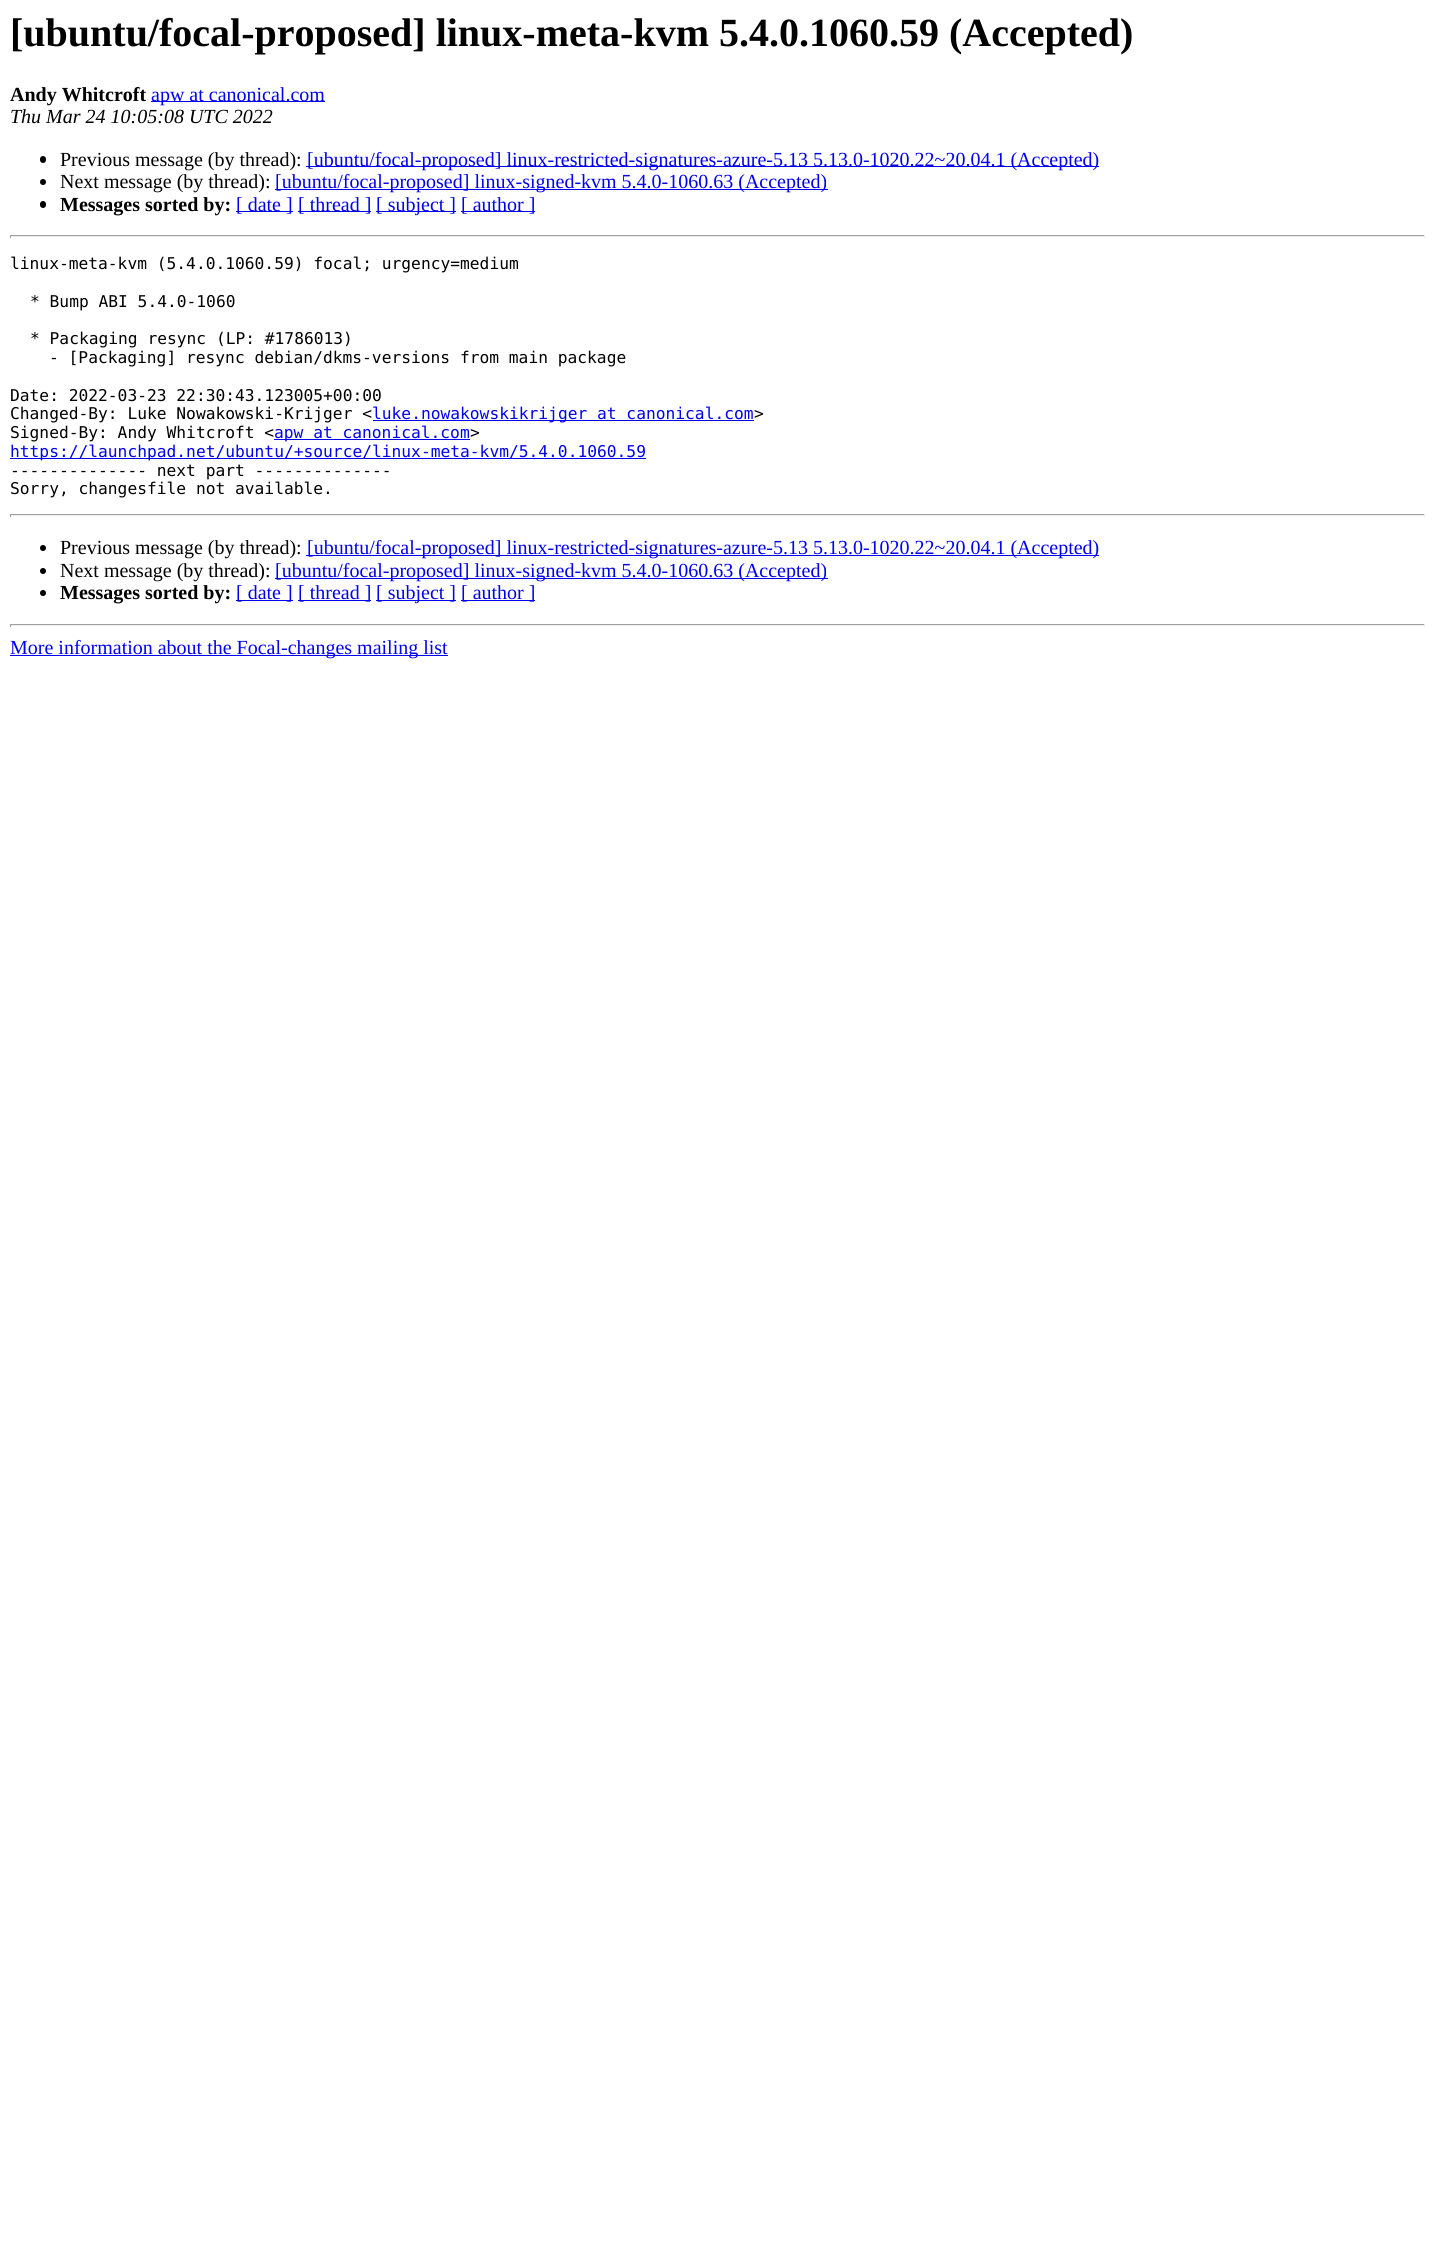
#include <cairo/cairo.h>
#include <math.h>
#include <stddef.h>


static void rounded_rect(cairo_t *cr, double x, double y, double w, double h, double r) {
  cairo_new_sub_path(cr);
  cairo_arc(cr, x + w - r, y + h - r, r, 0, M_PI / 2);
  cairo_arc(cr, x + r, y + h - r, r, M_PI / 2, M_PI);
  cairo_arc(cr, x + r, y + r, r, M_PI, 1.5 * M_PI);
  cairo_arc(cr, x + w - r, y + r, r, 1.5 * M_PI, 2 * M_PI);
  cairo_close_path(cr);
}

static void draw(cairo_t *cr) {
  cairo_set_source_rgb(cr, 1, 1, 1);
  cairo_paint(cr);
  cairo_set_source_rgb(cr, 0, 0, 238 / 255.0);
  cairo_rectangle(cr, 151, 101, 174, 1);
  cairo_fill(cr);
  cairo_set_source_rgb(cr, 0, 0, 0);
  rounded_rect(cr, 40, 156, 6, 7, 3);
  cairo_fill(cr);
  cairo_set_source_rgb(cr, 0, 0, 238 / 255.0);
  cairo_rectangle(cr, 306, 166, 793, 1);
  cairo_fill(cr);
  cairo_set_source_rgb(cr, 0, 0, 0);
  cairo_arc(cr, 43, 182, 3, 0, 2 * M_PI);
  cairo_fill(cr);
  cairo_set_source_rgb(cr, 0, 0, 238 / 255.0);
  cairo_rectangle(cr, 275, 189, 553, 1);
  cairo_fill(cr);
  cairo_set_source_rgb(cr, 0, 0, 0);
  rounded_rect(cr, 40, 201, 6, 7, 3);
  cairo_fill(cr);
  cairo_set_source_rgb(cr, 0, 0, 238 / 255.0);
  cairo_rectangle(cr, 236, 211, 57, 1);
  cairo_fill(cr);
  cairo_rectangle(cr, 298, 211, 73, 1);
  cairo_fill(cr);
  cairo_rectangle(cr, 376, 211, 80, 1);
  cairo_fill(cr);
  cairo_rectangle(cr, 461, 211, 74, 1);
  cairo_fill(cr);
  cairo_set_source_rgb(cr, 159 / 255.0, 159 / 255.0, 159 / 255.0);
  cairo_rectangle(cr, 10, 235, 1415, 1);
  cairo_fill(cr);
  cairo_set_source_rgb(cr, 238 / 255.0, 238 / 255.0, 238 / 255.0);
  cairo_rectangle(cr, 1424, 235, 1, 3);
  cairo_fill(cr);
  cairo_rectangle(cr, 10, 236, 1415, 1);
  cairo_fill(cr);
  cairo_set_source_rgb(cr, 159 / 255.0, 159 / 255.0, 159 / 255.0);
  cairo_rectangle(cr, 10, 235, 1, 3);
  cairo_fill(cr);
  cairo_set_source_rgb(cr, 0, 0, 238 / 255.0);
  cairo_rectangle(cr, 373, 420, 381, 1);
  cairo_fill(cr);
  cairo_rectangle(cr, 274, 439, 196, 1);
  cairo_fill(cr);
  cairo_rectangle(cr, 10, 458, 636, 1);
  cairo_fill(cr);
  cairo_set_source_rgb(cr, 159 / 255.0, 159 / 255.0, 159 / 255.0);
  cairo_rectangle(cr, 10, 514, 1415, 1);
  cairo_fill(cr);
  cairo_set_source_rgb(cr, 238 / 255.0, 238 / 255.0, 238 / 255.0);
  cairo_rectangle(cr, 1424, 514, 1, 3);
  cairo_fill(cr);
  cairo_rectangle(cr, 10, 515, 1415, 1);
  cairo_fill(cr);
  cairo_set_source_rgb(cr, 159 / 255.0, 159 / 255.0, 159 / 255.0);
  cairo_rectangle(cr, 10, 514, 1, 3);
  cairo_fill(cr);
  cairo_set_source_rgb(cr, 0, 0, 0);
  cairo_arc(cr, 43, 548, 3, 0, 2 * M_PI);
  cairo_fill(cr);
  cairo_set_source_rgb(cr, 0, 0, 238 / 255.0);
  cairo_rectangle(cr, 306, 555, 793, 1);
  cairo_fill(cr);
  cairo_set_source_rgb(cr, 0, 0, 0);
  cairo_arc(cr, 43, 571, 3, 0, 2 * M_PI);
  cairo_fill(cr);
  cairo_set_source_rgb(cr, 0, 0, 238 / 255.0);
  cairo_rectangle(cr, 275, 578, 553, 1);
  cairo_fill(cr);
  cairo_set_source_rgb(cr, 0, 0, 0);
  cairo_arc(cr, 43, 593, 3, 0, 2 * M_PI);
  cairo_fill(cr);
  cairo_set_source_rgb(cr, 0, 0, 238 / 255.0);
  cairo_rectangle(cr, 236, 600, 57, 1);
  cairo_fill(cr);
  cairo_rectangle(cr, 298, 600, 73, 1);
  cairo_fill(cr);
  cairo_rectangle(cr, 376, 600, 80, 1);
  cairo_fill(cr);
  cairo_rectangle(cr, 461, 600, 74, 1);
  cairo_fill(cr);
  cairo_set_source_rgb(cr, 159 / 255.0, 159 / 255.0, 159 / 255.0);
  cairo_rectangle(cr, 10, 624, 1415, 1);
  cairo_fill(cr);
  cairo_set_source_rgb(cr, 238 / 255.0, 238 / 255.0, 238 / 255.0);
  cairo_rectangle(cr, 1424, 624, 1, 3);
  cairo_fill(cr);
  cairo_rectangle(cr, 10, 625, 1415, 1);
  cairo_fill(cr);
  cairo_set_source_rgb(cr, 159 / 255.0, 159 / 255.0, 159 / 255.0);
  cairo_rectangle(cr, 10, 624, 1, 3);
  cairo_fill(cr);
  cairo_set_source_rgb(cr, 0, 0, 238 / 255.0);
  cairo_rectangle(cr, 10, 655, 438, 1);
  cairo_fill(cr);
  cairo_select_font_face(cr, "Liberation Serif", CAIRO_FONT_SLANT_NORMAL, CAIRO_FONT_WEIGHT_BOLD);
  cairo_set_font_size(cr, 40);
  cairo_set_source_rgb(cr, 0, 0, 0);
  cairo_move_to(cr, 10, 46);
  cairo_show_text(cr, "[ubuntu/focal-proposed] linux-meta-kvm 5.4.0.1060.59 (Accepted)");
  cairo_set_font_size(cr, 20);
  cairo_move_to(cr, 10, 101);
  cairo_show_text(cr, "Andy Whitcroft");
  cairo_select_font_face(cr, "Liberation Serif", CAIRO_FONT_SLANT_NORMAL, CAIRO_FONT_WEIGHT_NORMAL);
  cairo_set_source_rgb(cr, 0, 0, 238 / 255.0);
  cairo_move_to(cr, 151, 101);
  cairo_show_text(cr, "apw at canonical.com");
  cairo_select_font_face(cr, "Liberation Serif", CAIRO_FONT_SLANT_ITALIC, CAIRO_FONT_WEIGHT_NORMAL);
  cairo_set_source_rgb(cr, 0, 0, 0);
  cairo_move_to(cr, 10, 123);
  cairo_show_text(cr, "Thu Mar 24 10:05:08 UTC 2022");
  cairo_select_font_face(cr, "Liberation Serif", CAIRO_FONT_SLANT_NORMAL, CAIRO_FONT_WEIGHT_NORMAL);
  cairo_move_to(cr, 60, 166);
  cairo_show_text(cr, "Previous message (by thread):");
  cairo_set_source_rgb(cr, 0, 0, 238 / 255.0);
  cairo_move_to(cr, 307, 166);
  cairo_show_text(cr, "[ubuntu/focal-proposed] linux-restricted-signatures-azure-5.13 5.13.0-1020.22~20.04.1 (Accepted)");
  cairo_set_source_rgb(cr, 0, 0, 0);
  cairo_move_to(cr, 60, 188);
  cairo_show_text(cr, "Next message (by thread):");
  cairo_set_source_rgb(cr, 0, 0, 238 / 255.0);
  cairo_move_to(cr, 275, 188);
  cairo_show_text(cr, "[ubuntu/focal-proposed] linux-signed-kvm 5.4.0-1060.63 (Accepted)");
  cairo_select_font_face(cr, "Liberation Serif", CAIRO_FONT_SLANT_NORMAL, CAIRO_FONT_WEIGHT_BOLD);
  cairo_set_source_rgb(cr, 0, 0, 0);
  cairo_move_to(cr, 60, 211);
  cairo_show_text(cr, "Messages sorted by:");
  cairo_select_font_face(cr, "Liberation Serif", CAIRO_FONT_SLANT_NORMAL, CAIRO_FONT_WEIGHT_NORMAL);
  cairo_set_source_rgb(cr, 0, 0, 238 / 255.0);
  cairo_move_to(cr, 236, 211);
  cairo_show_text(cr, "[ date ]");
  cairo_move_to(cr, 298, 211);
  cairo_show_text(cr, "[ thread ]");
  cairo_move_to(cr, 376, 211);
  cairo_show_text(cr, "[ subject ]");
  cairo_move_to(cr, 461, 211);
  cairo_show_text(cr, "[ author ]");
  cairo_select_font_face(cr, "DejaVu Sans Mono", CAIRO_FONT_SLANT_NORMAL, CAIRO_FONT_WEIGHT_NORMAL);
  cairo_set_font_size(cr, 16.25);
  cairo_set_source_rgb(cr, 0, 0, 0);
  cairo_move_to(cr, 10, 269);
  cairo_show_text(cr, "linux-meta-kvm (5.4.0.1060.59) focal; urgency=medium");
  cairo_move_to(cr, 30, 307);
  cairo_show_text(cr, "* Bump ABI 5.4.0-1060");
  cairo_move_to(cr, 30, 344);
  cairo_show_text(cr, "* Packaging resync (LP: #1786013)");
  cairo_move_to(cr, 49, 363);
  cairo_show_text(cr, "- [Packaging] resync debian/dkms-versions from main package");
  cairo_move_to(cr, 10, 401);
  cairo_show_text(cr, "Date: 2022-03-23 22:30:43.123005+00:00");
  cairo_move_to(cr, 10, 419);
  cairo_show_text(cr, "Changed-By: Luke Nowakowski-Krijger <");
  cairo_set_source_rgb(cr, 0, 0, 238 / 255.0);
  cairo_move_to(cr, 372, 419);
  cairo_show_text(cr, "luke.nowakowskikrijger at canonical.com");
  cairo_set_source_rgb(cr, 0, 0, 0);
  cairo_move_to(cr, 754, 419);
  cairo_show_text(cr, ">");
  cairo_move_to(cr, 10, 438);
  cairo_show_text(cr, "Signed-By: Andy Whitcroft <");
  cairo_set_source_rgb(cr, 0, 0, 238 / 255.0);
  cairo_move_to(cr, 274, 438);
  cairo_show_text(cr, "apw at canonical.com");
  cairo_set_source_rgb(cr, 0, 0, 0);
  cairo_move_to(cr, 470, 438);
  cairo_show_text(cr, ">");
  cairo_set_source_rgb(cr, 0, 0, 238 / 255.0);
  cairo_move_to(cr, 10, 457);
  cairo_show_text(cr, "https://launchpad.net/ubuntu/+source/linux-meta-kvm/5.4.0.1060.59");
  cairo_set_source_rgb(cr, 0, 0, 0);
  cairo_move_to(cr, 10, 476);
  cairo_show_text(cr, "-------------- next part --------------");
  cairo_move_to(cr, 10, 494);
  cairo_show_text(cr, "Sorry, changesfile not available.");
  cairo_select_font_face(cr, "Liberation Serif", CAIRO_FONT_SLANT_NORMAL, CAIRO_FONT_WEIGHT_NORMAL);
  cairo_set_font_size(cr, 20);
  cairo_move_to(cr, 60, 554);
  cairo_show_text(cr, "Previous message (by thread):");
  cairo_set_source_rgb(cr, 0, 0, 238 / 255.0);
  cairo_move_to(cr, 307, 554);
  cairo_show_text(cr, "[ubuntu/focal-proposed] linux-restricted-signatures-azure-5.13 5.13.0-1020.22~20.04.1 (Accepted)");
  cairo_set_source_rgb(cr, 0, 0, 0);
  cairo_move_to(cr, 60, 577);
  cairo_show_text(cr, "Next message (by thread):");
  cairo_set_source_rgb(cr, 0, 0, 238 / 255.0);
  cairo_move_to(cr, 275, 577);
  cairo_show_text(cr, "[ubuntu/focal-proposed] linux-signed-kvm 5.4.0-1060.63 (Accepted)");
  cairo_select_font_face(cr, "Liberation Serif", CAIRO_FONT_SLANT_NORMAL, CAIRO_FONT_WEIGHT_BOLD);
  cairo_set_source_rgb(cr, 0, 0, 0);
  cairo_move_to(cr, 60, 599);
  cairo_show_text(cr, "Messages sorted by:");
  cairo_select_font_face(cr, "Liberation Serif", CAIRO_FONT_SLANT_NORMAL, CAIRO_FONT_WEIGHT_NORMAL);
  cairo_set_source_rgb(cr, 0, 0, 238 / 255.0);
  cairo_move_to(cr, 236, 599);
  cairo_show_text(cr, "[ date ]");
  cairo_move_to(cr, 298, 599);
  cairo_show_text(cr, "[ thread ]");
  cairo_move_to(cr, 376, 599);
  cairo_show_text(cr, "[ subject ]");
  cairo_move_to(cr, 461, 599);
  cairo_show_text(cr, "[ author ]");
  cairo_move_to(cr, 10, 654);
  cairo_show_text(cr, "More information about the Focal-changes mailing list");
}

int main(void) {
  cairo_surface_t *surface = cairo_image_surface_create(CAIRO_FORMAT_RGB24, 1434, 2241);
  cairo_t *cr = cairo_create(surface);
  cairo_font_options_t *options = cairo_font_options_create();
  cairo_font_options_set_hint_metrics(options, CAIRO_HINT_METRICS_OFF);
  cairo_font_options_set_hint_style(options, CAIRO_HINT_STYLE_NONE);
  cairo_set_font_options(cr, options);
  cairo_set_miter_limit(cr, 4);
  draw(cr);
  cairo_surface_write_to_png(surface, "out.png");
  cairo_font_options_destroy(options);
  cairo_destroy(cr);
  cairo_surface_destroy(surface);
  return 0;
}
